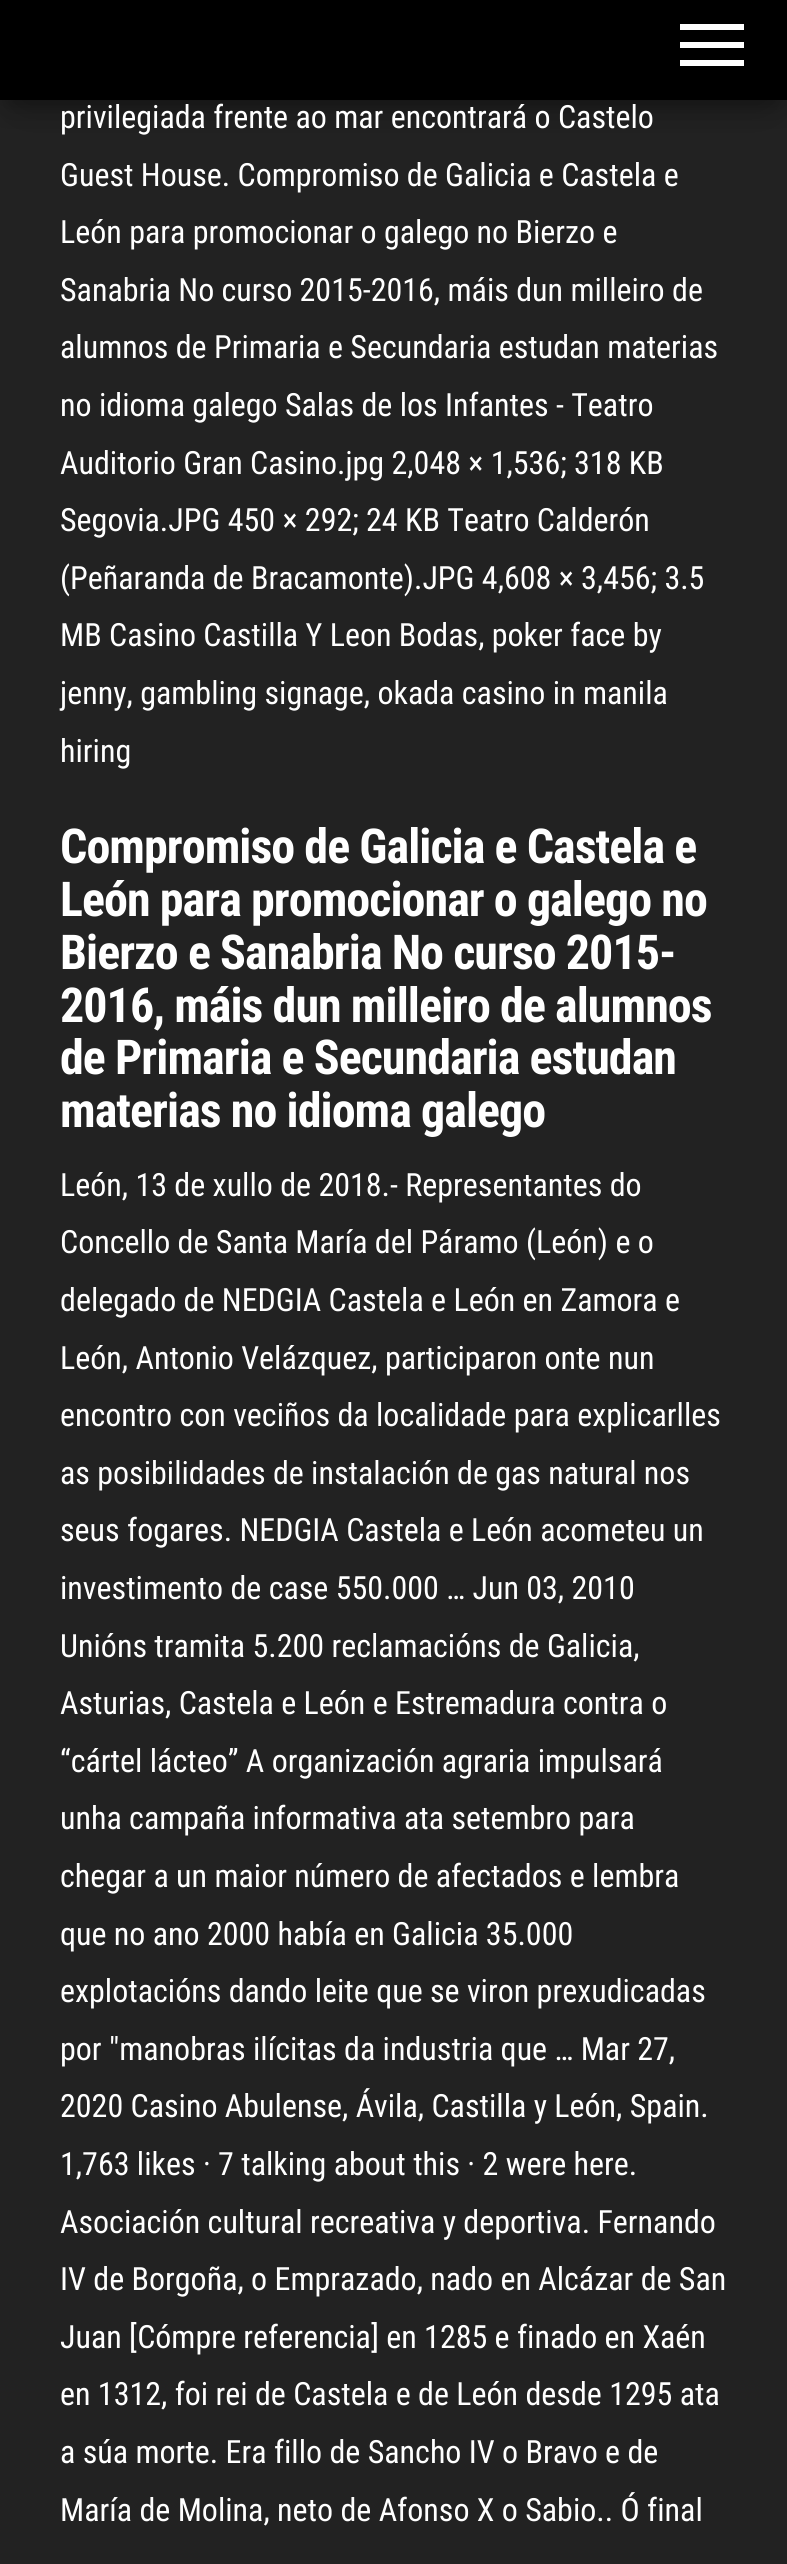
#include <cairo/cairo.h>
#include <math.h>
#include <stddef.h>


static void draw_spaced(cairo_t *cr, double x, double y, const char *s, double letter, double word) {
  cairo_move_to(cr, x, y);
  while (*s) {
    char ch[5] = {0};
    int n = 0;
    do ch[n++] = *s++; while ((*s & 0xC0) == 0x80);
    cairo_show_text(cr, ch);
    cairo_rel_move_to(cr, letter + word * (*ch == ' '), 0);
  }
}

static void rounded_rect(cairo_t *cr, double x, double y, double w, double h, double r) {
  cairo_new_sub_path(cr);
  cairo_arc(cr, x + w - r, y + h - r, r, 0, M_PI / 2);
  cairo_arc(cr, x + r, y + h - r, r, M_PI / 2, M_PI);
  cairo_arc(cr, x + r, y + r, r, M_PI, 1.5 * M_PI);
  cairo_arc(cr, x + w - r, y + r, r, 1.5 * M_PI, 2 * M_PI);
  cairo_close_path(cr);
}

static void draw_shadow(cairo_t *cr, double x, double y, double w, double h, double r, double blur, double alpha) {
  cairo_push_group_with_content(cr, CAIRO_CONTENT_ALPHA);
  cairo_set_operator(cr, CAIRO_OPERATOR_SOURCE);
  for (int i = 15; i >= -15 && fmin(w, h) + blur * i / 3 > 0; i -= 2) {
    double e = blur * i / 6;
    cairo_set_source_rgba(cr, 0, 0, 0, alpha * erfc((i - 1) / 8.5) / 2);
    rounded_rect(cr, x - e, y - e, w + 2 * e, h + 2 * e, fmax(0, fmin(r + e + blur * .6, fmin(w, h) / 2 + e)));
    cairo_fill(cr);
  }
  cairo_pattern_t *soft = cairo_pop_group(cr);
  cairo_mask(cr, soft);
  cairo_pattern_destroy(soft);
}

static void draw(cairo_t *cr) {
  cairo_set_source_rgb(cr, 34 / 255.0, 34 / 255.0, 34 / 255.0);
  cairo_paint(cr);
  cairo_set_source_rgb(cr, 0, 0, 0);
  draw_shadow(cr, 10, 26, 768, 80, 0, 10, 0.2);
  draw_shadow(cr, 0, 6, 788, 100, 0, 20, 0.12);
  draw_shadow(cr, 24, 44, 740, 52, 0, 20, 0.42);
  cairo_set_source_rgb(cr, 0, 0, 0);
  cairo_rectangle(cr, 0, 0, 787, 100);
  cairo_fill(cr);
  cairo_set_source_rgb(cr, 1, 1, 1);
  cairo_rectangle(cr, 680, 24, 64, 6);
  cairo_fill(cr);
  cairo_rectangle(cr, 680, 42, 64, 6);
  cairo_fill(cr);
  cairo_rectangle(cr, 680, 60, 64, 6);
  cairo_fill(cr);
  cairo_select_font_face(cr, "Roboto Condensed", CAIRO_FONT_SLANT_NORMAL, CAIRO_FONT_WEIGHT_NORMAL);
  cairo_set_font_size(cr, 32);
  cairo_move_to(cr, 60, 128);
  cairo_show_text(cr, "privilegiada frente ao mar encontrará o Castelo");
  cairo_move_to(cr, 60, 186);
  cairo_show_text(cr, "Guest House. Compromiso de Galicia e Castela e");
  cairo_move_to(cr, 60, 243);
  cairo_show_text(cr, "León para promocionar o galego no Bierzo e");
  cairo_move_to(cr, 60, 301);
  cairo_show_text(cr, "Sanabria No curso 2015-2016, máis dun milleiro de");
  cairo_move_to(cr, 60, 358);
  cairo_show_text(cr, "alumnos de Primaria e Secundaria estudan materias");
  cairo_move_to(cr, 60, 416);
  cairo_show_text(cr, "no idioma galego Salas de los Infantes - Teatro");
  cairo_move_to(cr, 60, 474);
  cairo_show_text(cr, "Auditorio Gran Casino.jpg 2,048 × 1,536; 318 KB");
  cairo_move_to(cr, 60, 531);
  cairo_show_text(cr, "Segovia.JPG 450 × 292; 24 KB Teatro Calderón");
  cairo_move_to(cr, 60, 589);
  cairo_show_text(cr, "(Peñaranda de Bracamonte).JPG 4,608 × 3,456; 3.5");
  cairo_move_to(cr, 60, 646);
  cairo_show_text(cr, "MB Casino Castilla Y Leon Bodas, poker face by");
  cairo_move_to(cr, 60, 704);
  cairo_show_text(cr, "jenny, gambling signage, okada casino in manila");
  cairo_move_to(cr, 60, 762);
  cairo_show_text(cr, "hiring");
  cairo_select_font_face(cr, "Roboto Condensed", CAIRO_FONT_SLANT_NORMAL, CAIRO_FONT_WEIGHT_BOLD);
  cairo_set_font_size(cr, 48);
  draw_spaced(cr, 60, 863, "Compromiso de Galicia e Castela e", -0.95, 0);
  draw_spaced(cr, 60, 916, "León para promocionar o galego no", -0.95, 0);
  draw_spaced(cr, 60, 969, "Bierzo e Sanabria No curso 2015-", -0.95, 0);
  draw_spaced(cr, 60, 1022, "2016, máis dun milleiro de alumnos", -0.95, 0);
  draw_spaced(cr, 60, 1074, "de Primaria e Secundaria estudan", -0.95, 0);
  draw_spaced(cr, 60, 1127, "materias no idioma galego", -0.95, 0);
  cairo_select_font_face(cr, "Roboto Condensed", CAIRO_FONT_SLANT_NORMAL, CAIRO_FONT_WEIGHT_NORMAL);
  cairo_set_font_size(cr, 32);
  cairo_move_to(cr, 60, 1196);
  cairo_show_text(cr, "León, 13 de xullo de 2018.- Representantes do");
  cairo_move_to(cr, 60, 1253);
  cairo_show_text(cr, "Concello de Santa María del Páramo (León) e o");
  cairo_move_to(cr, 60, 1311);
  cairo_show_text(cr, "delegado de NEDGIA Castela e León en Zamora e");
  cairo_move_to(cr, 60, 1369);
  cairo_show_text(cr, "León, Antonio Velázquez, participaron onte nun");
  cairo_move_to(cr, 60, 1426);
  cairo_show_text(cr, "encontro con veciños da localidade para explicarlles");
  cairo_move_to(cr, 60, 1484);
  cairo_show_text(cr, "as posibilidades de instalación de gas natural nos");
  cairo_move_to(cr, 60, 1541);
  cairo_show_text(cr, "seus fogares. NEDGIA Castela e León acometeu un");
  cairo_move_to(cr, 60, 1599);
  cairo_show_text(cr, "investimento de case 550.000 … Jun 03, 2010");
  cairo_move_to(cr, 60, 1657);
  cairo_show_text(cr, "Unións tramita 5.200 reclamacións de Galicia,");
  cairo_move_to(cr, 60, 1714);
  cairo_show_text(cr, "Asturias, Castela e León e Estremadura contra o");
  cairo_move_to(cr, 60, 1772);
  cairo_show_text(cr, "“cártel lácteo” A organización agraria impulsará");
  cairo_move_to(cr, 60, 1829);
  cairo_show_text(cr, "unha campaña informativa ata setembro para");
  cairo_move_to(cr, 60, 1887);
  cairo_show_text(cr, "chegar a un maior número de afectados e lembra");
  cairo_move_to(cr, 60, 1945);
  cairo_show_text(cr, "que no ano 2000 había en Galicia 35.000");
  cairo_move_to(cr, 60, 2002);
  cairo_show_text(cr, "explotacións dando leite que se viron prexudicadas");
  cairo_move_to(cr, 60, 2060);
  cairo_show_text(cr, "por \"manobras ilícitas da industria que … Mar 27,");
  cairo_move_to(cr, 60, 2117);
  cairo_show_text(cr, "2020 Casino Abulense, Ávila, Castilla y León, Spain.");
  cairo_move_to(cr, 60, 2175);
  cairo_show_text(cr, "1,763 likes · 7 talking about this · 2 were here.");
  cairo_move_to(cr, 60, 2233);
  cairo_show_text(cr, "Asociación cultural recreativa y deportiva. Fernando");
  cairo_move_to(cr, 60, 2290);
  cairo_show_text(cr, "IV de Borgoña, o Emprazado, nado en Alcázar de San");
  cairo_move_to(cr, 60, 2348);
  cairo_show_text(cr, "Juan [Cómpre referencia] en 1285 e finado en Xaén");
  cairo_move_to(cr, 60, 2405);
  cairo_show_text(cr, "en 1312, foi rei de Castela e de León desde 1295 ata");
  cairo_move_to(cr, 60, 2463);
  cairo_show_text(cr, "a súa morte. Era fillo de Sancho IV o Bravo e de");
  cairo_move_to(cr, 60, 2521);
  cairo_show_text(cr, "María de Molina, neto de Afonso X o Sabio.. Ó final");
}

int main(void) {
  cairo_surface_t *surface = cairo_image_surface_create(CAIRO_FORMAT_RGB24, 787, 2564);
  cairo_t *cr = cairo_create(surface);
  cairo_font_options_t *options = cairo_font_options_create();
  cairo_font_options_set_hint_metrics(options, CAIRO_HINT_METRICS_OFF);
  cairo_font_options_set_hint_style(options, CAIRO_HINT_STYLE_NONE);
  cairo_set_font_options(cr, options);
  cairo_set_miter_limit(cr, 4);
  draw(cr);
  cairo_surface_write_to_png(surface, "out.png");
  cairo_font_options_destroy(options);
  cairo_destroy(cr);
  cairo_surface_destroy(surface);
  return 0;
}
